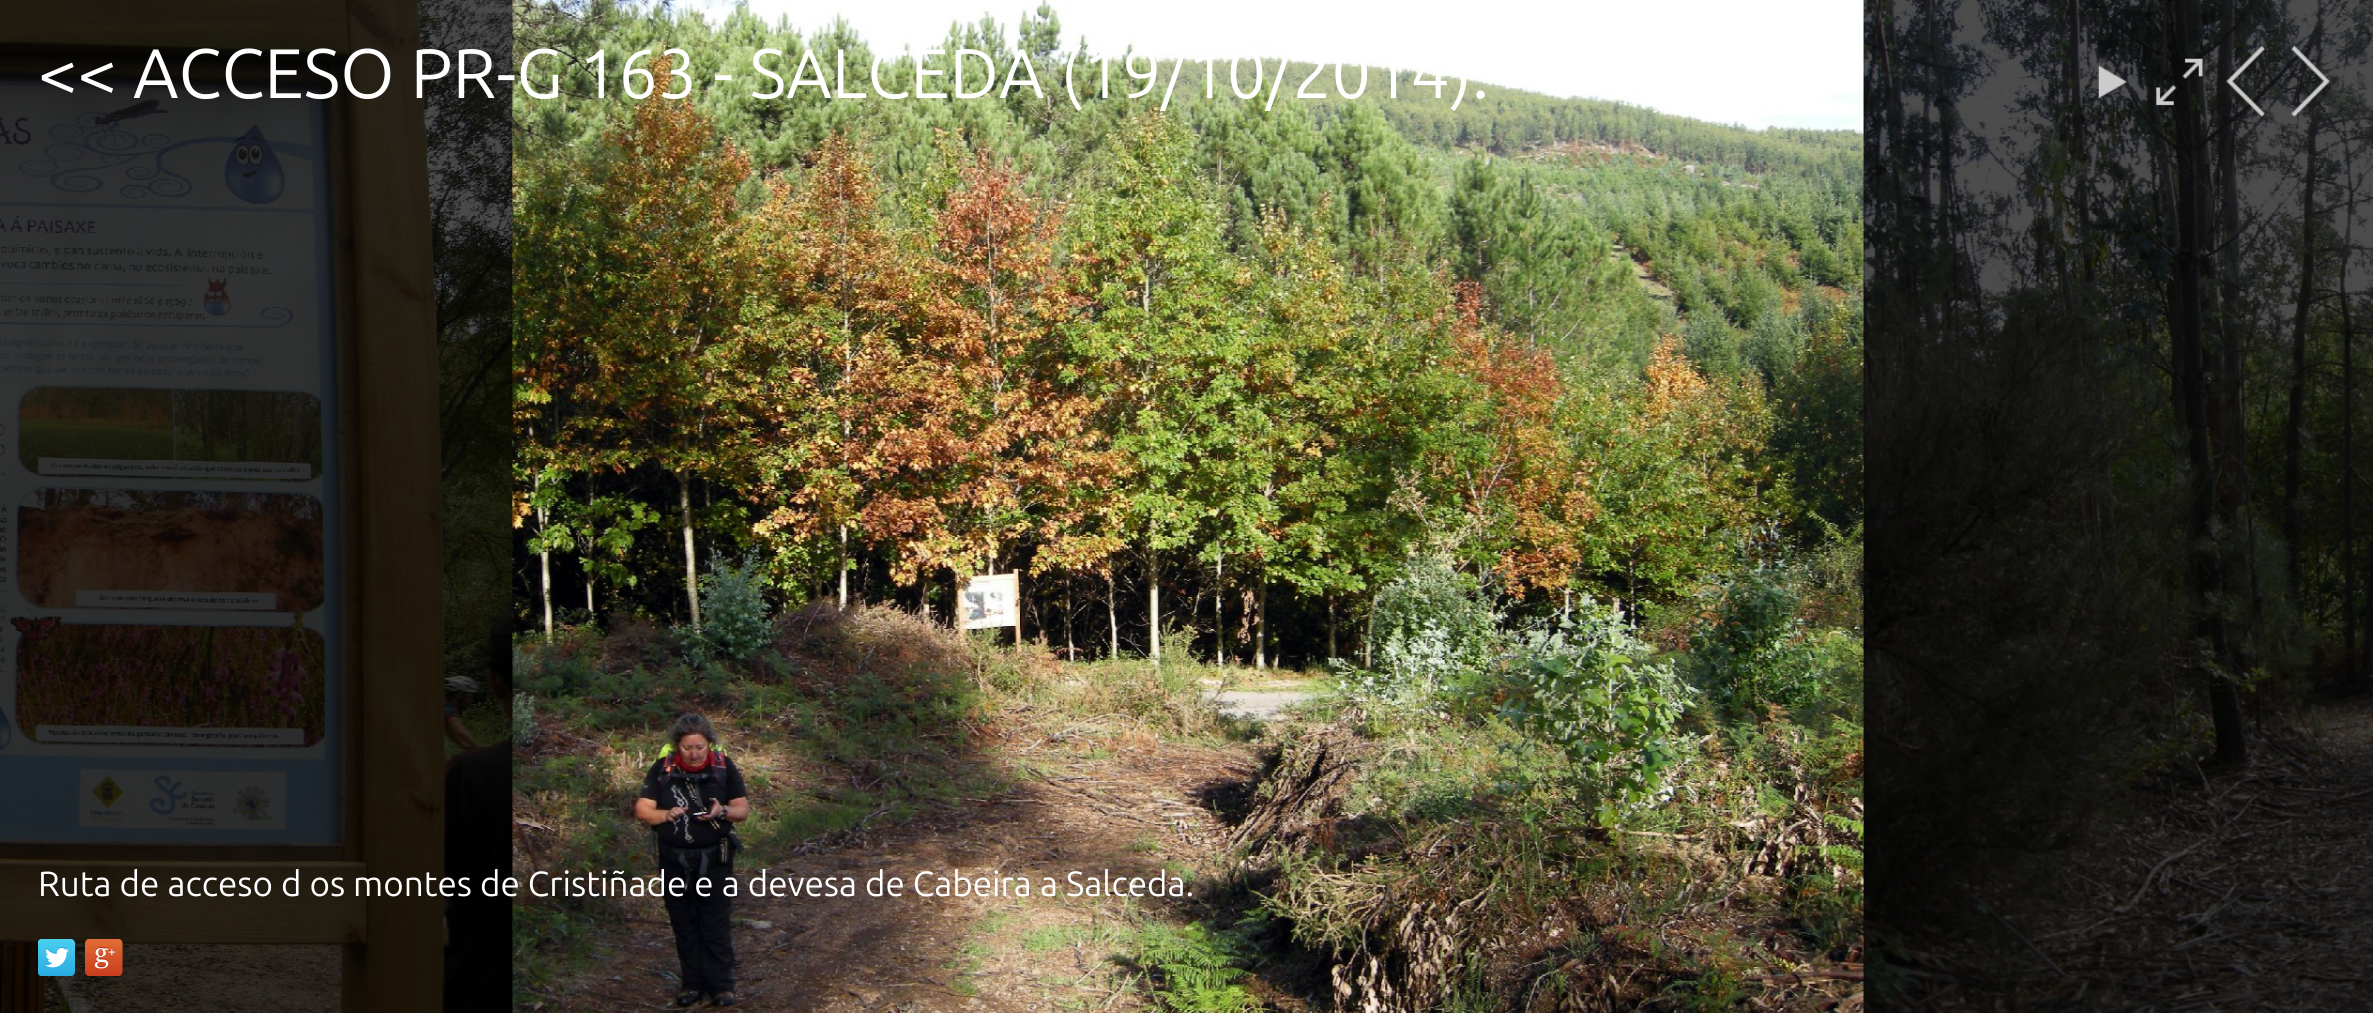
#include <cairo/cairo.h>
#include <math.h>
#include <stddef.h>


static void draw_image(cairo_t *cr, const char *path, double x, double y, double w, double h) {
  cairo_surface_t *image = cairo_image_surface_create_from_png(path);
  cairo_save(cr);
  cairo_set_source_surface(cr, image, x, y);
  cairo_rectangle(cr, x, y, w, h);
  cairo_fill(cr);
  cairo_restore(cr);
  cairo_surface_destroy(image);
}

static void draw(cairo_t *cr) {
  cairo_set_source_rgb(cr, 0, 0, 0);
  cairo_paint(cr);
  draw_image(cr, "images/1.png", 0, 0, 513, 1013);
  draw_image(cr, "images/2.png", 512, 0, 1352, 1013);
  draw_image(cr, "images/3.png", 1863, 0, 510, 1013);
  draw_image(cr, "images/4.png", 2098, 65, 30, 34);
  draw_image(cr, "images/5.png", 2156, 58, 49, 48);
  draw_image(cr, "images/6.png", 2226, 45, 40, 72);
  draw_image(cr, "images/7.png", 2291, 45, 40, 73);
  draw_image(cr, "images/8.png", 38, 939, 37, 37);
  draw_image(cr, "images/9.png", 85, 939, 38, 37);
  cairo_select_font_face(cr, "Ubuntu", CAIRO_FONT_SLANT_NORMAL, CAIRO_FONT_WEIGHT_NORMAL);
  cairo_set_font_size(cr, 70);
  cairo_set_source_rgb(cr, 1, 1, 1);
  cairo_move_to(cr, 38, 98);
  cairo_show_text(cr, "<< ACCESO PR-G 163 - SALCEDA (19/10/2014).");
  cairo_set_font_size(cr, 35);
  cairo_move_to(cr, 38, 896);
  cairo_show_text(cr, "Ruta de acceso d os montes de Cristiñade e a devesa de Cabeira a Salceda.");
}

int main(void) {
  cairo_surface_t *surface = cairo_image_surface_create(CAIRO_FORMAT_RGB24, 2373, 1013);
  cairo_t *cr = cairo_create(surface);
  cairo_font_options_t *options = cairo_font_options_create();
  cairo_font_options_set_hint_metrics(options, CAIRO_HINT_METRICS_OFF);
  cairo_font_options_set_hint_style(options, CAIRO_HINT_STYLE_NONE);
  cairo_set_font_options(cr, options);
  cairo_set_miter_limit(cr, 4);
  draw(cr);
  cairo_surface_write_to_png(surface, "out.png");
  cairo_font_options_destroy(options);
  cairo_destroy(cr);
  cairo_surface_destroy(surface);
  return 0;
}
